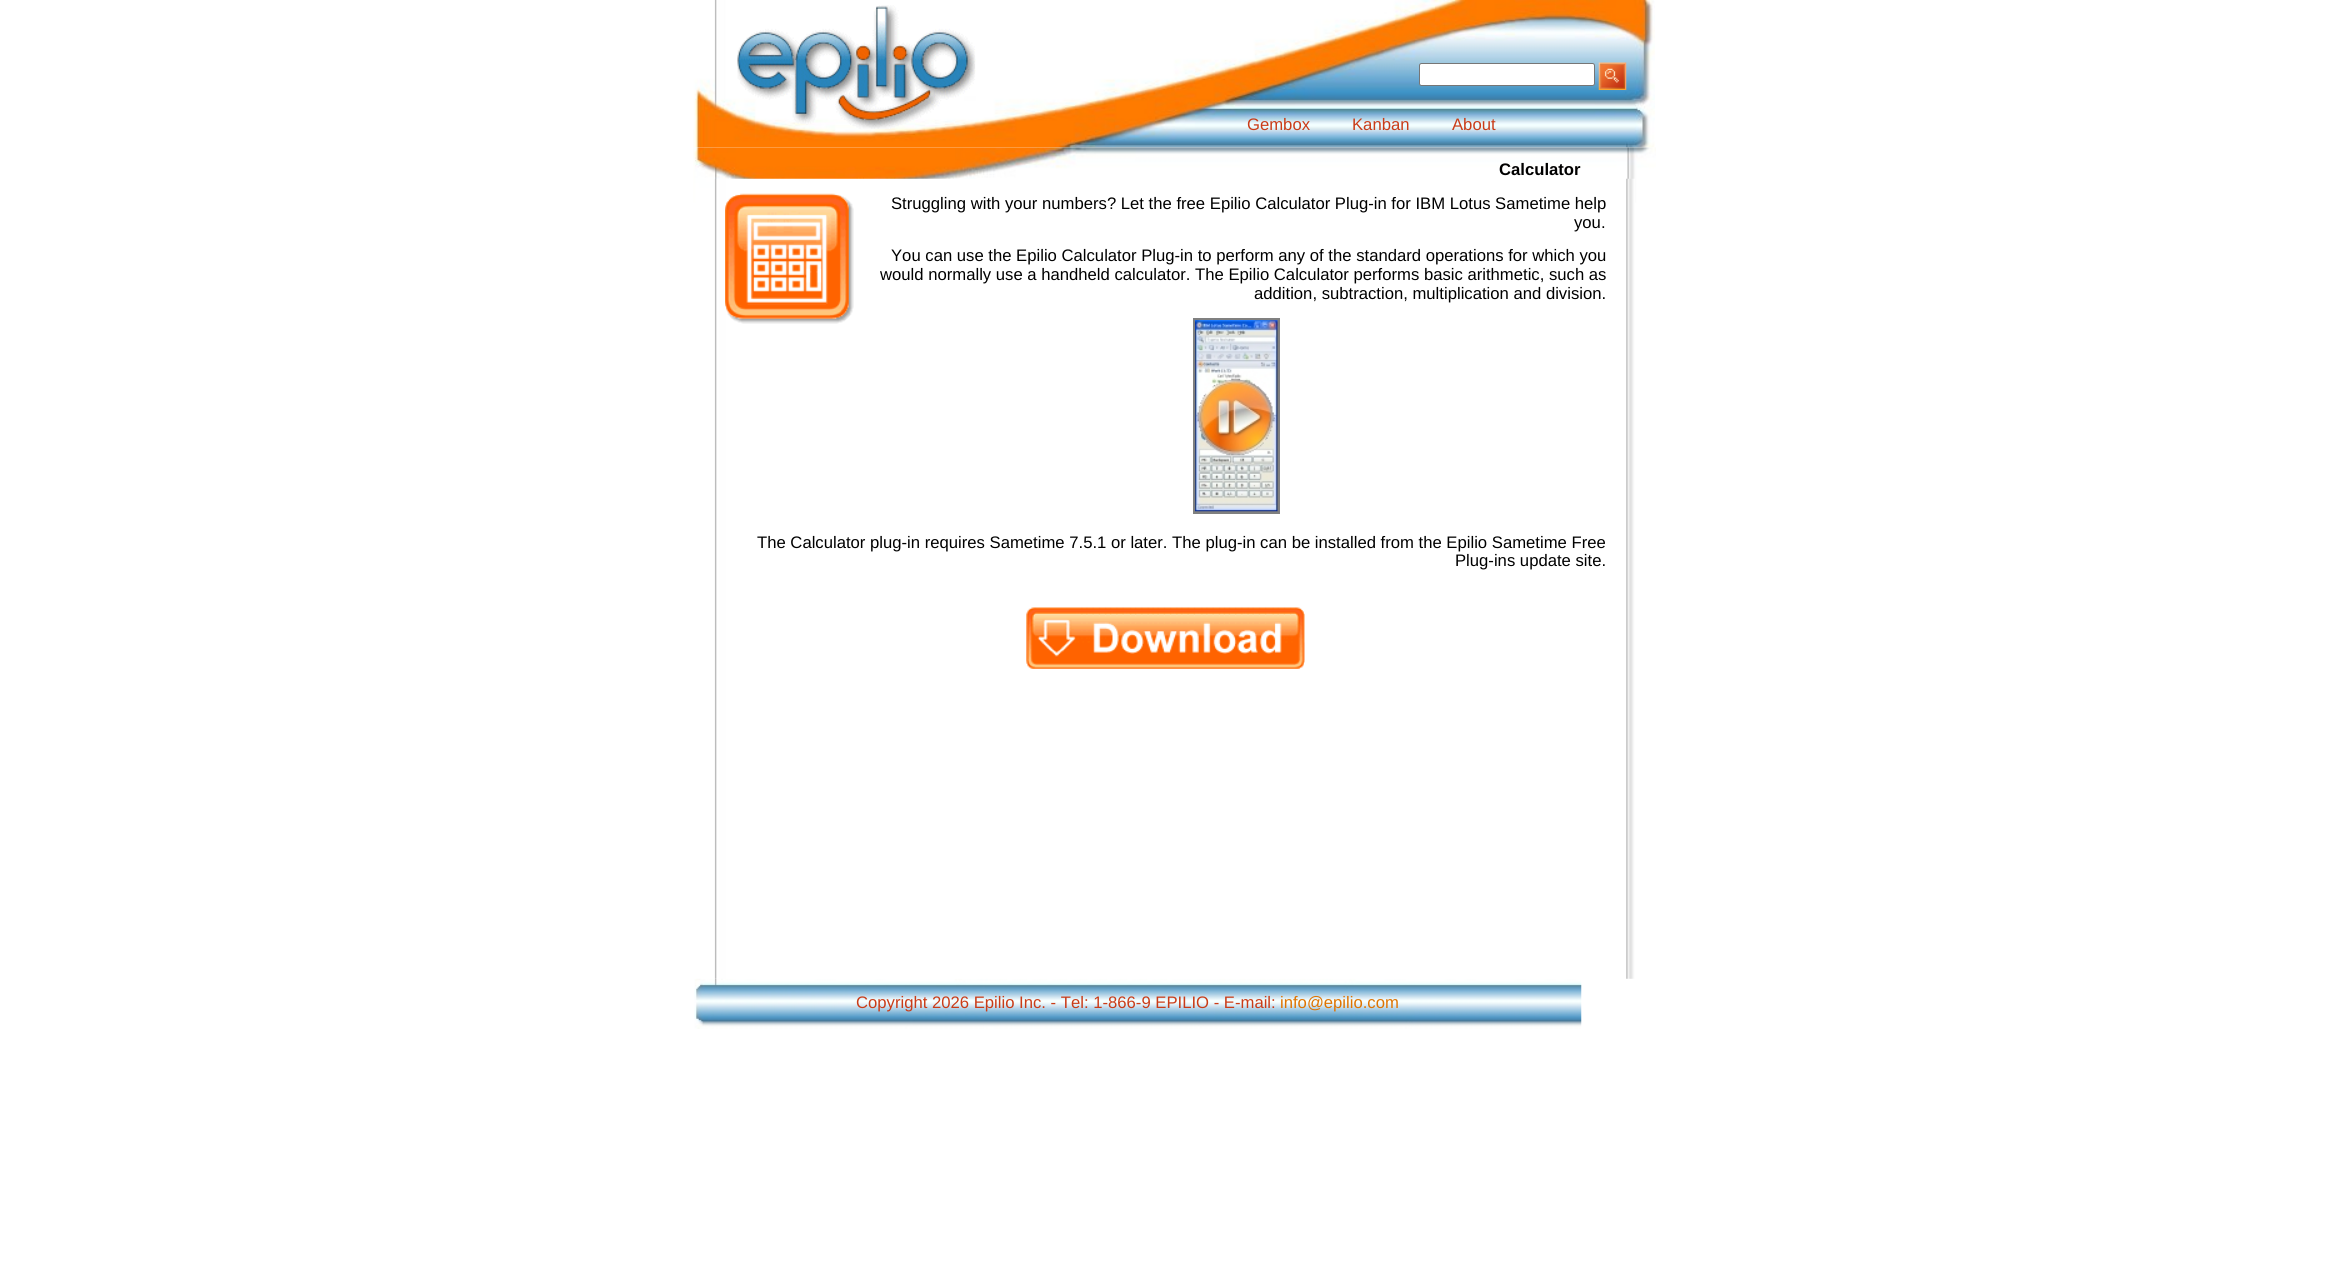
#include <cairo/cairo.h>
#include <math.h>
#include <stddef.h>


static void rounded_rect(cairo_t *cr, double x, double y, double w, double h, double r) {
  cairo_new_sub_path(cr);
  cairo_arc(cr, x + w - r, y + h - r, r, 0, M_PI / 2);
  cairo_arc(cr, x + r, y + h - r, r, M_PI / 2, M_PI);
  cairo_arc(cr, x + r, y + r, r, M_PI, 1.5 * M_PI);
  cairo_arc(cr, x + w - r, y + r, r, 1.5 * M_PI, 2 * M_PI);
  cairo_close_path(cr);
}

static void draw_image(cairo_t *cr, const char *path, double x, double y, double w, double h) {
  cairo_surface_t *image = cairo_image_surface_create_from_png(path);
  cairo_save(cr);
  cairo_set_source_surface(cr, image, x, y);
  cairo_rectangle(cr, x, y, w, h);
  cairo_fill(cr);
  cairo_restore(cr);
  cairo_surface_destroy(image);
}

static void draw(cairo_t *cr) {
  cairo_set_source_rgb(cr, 1, 1, 1);
  cairo_paint(cr);
  draw_image(cr, "images/1.png", 693, 0, 962, 148);
  draw_image(cr, "images/2.png", 737, 5, 239, 124);
  cairo_set_source_rgb(cr, 1, 1, 1);
  rounded_rect(cr, 1419.5, 63.5, 175, 22, 2);
  cairo_fill_preserve(cr);
  cairo_set_source_rgb(cr, 118 / 255.0, 118 / 255.0, 118 / 255.0);
  cairo_set_line_width(cr, 1);
  cairo_stroke(cr);
  draw_image(cr, "images/3.png", 1598, 62, 29, 28);
  draw_image(cr, "images/4.png", 693, 147, 963, 56);
  draw_image(cr, "images/5.png", 714, 178, 921, 801);
  draw_image(cr, "images/6.png", 725, 193, 129, 131);
  cairo_rectangle(cr, 1194.5, 319.5, 84, 193);
  cairo_set_source_rgb(cr, 128 / 255.0, 128 / 255.0, 128 / 255.0);
  cairo_set_line_width(cr, 3);
  cairo_stroke(cr);
  draw_image(cr, "images/7.png", 1195, 320, 83, 192);
  draw_image(cr, "images/8.png", 1026, 607, 279, 62);
  draw_image(cr, "images/9.png", 694, 978, 888, 51);
  cairo_select_font_face(cr, "Liberation Sans", CAIRO_FONT_SLANT_NORMAL, CAIRO_FONT_WEIGHT_NORMAL);
  cairo_set_font_size(cr, 16.67);
  cairo_set_source_rgb(cr, 202 / 255.0, 60 / 255.0, 24 / 255.0);
  cairo_move_to(cr, 1247, 130);
  cairo_show_text(cr, "Gembox");
  cairo_move_to(cr, 1352, 130);
  cairo_show_text(cr, "Kanban");
  cairo_move_to(cr, 1452, 130);
  cairo_show_text(cr, "About");
  cairo_select_font_face(cr, "Liberation Sans", CAIRO_FONT_SLANT_NORMAL, CAIRO_FONT_WEIGHT_BOLD);
  cairo_set_source_rgb(cr, 0, 0, 0);
  cairo_move_to(cr, 1499, 175);
  cairo_show_text(cr, "Calculator");
  cairo_select_font_face(cr, "Liberation Sans", CAIRO_FONT_SLANT_NORMAL, CAIRO_FONT_WEIGHT_NORMAL);
  cairo_move_to(cr, 891, 209);
  cairo_show_text(cr, "Struggling with your numbers? Let the free Epilio Calculator Plug-in for IBM Lotus Sametime help");
  cairo_move_to(cr, 1574, 228);
  cairo_show_text(cr, "you.");
  cairo_move_to(cr, 891, 261);
  cairo_show_text(cr, "You can use the Epilio Calculator Plug-in to perform any of the standard operations for which you");
  cairo_move_to(cr, 880, 280);
  cairo_show_text(cr, "would normally use a handheld calculator. The Epilio Calculator performs basic arithmetic, such as");
  cairo_move_to(cr, 1254, 299);
  cairo_show_text(cr, "addition, subtraction, multiplication and division.");
  cairo_move_to(cr, 757, 548);
  cairo_show_text(cr, "The Calculator plug-in requires Sametime 7.5.1 or later. The plug-in can be installed from the Epilio Sametime Free");
  cairo_move_to(cr, 1455, 566);
  cairo_show_text(cr, "Plug-ins update site.");
  cairo_set_source_rgb(cr, 202 / 255.0, 60 / 255.0, 24 / 255.0);
  cairo_move_to(cr, 856, 1008);
  cairo_show_text(cr, "Copyright 2026 Epilio Inc. - Tel: 1-866-9 EPILIO - E-mail:");
  cairo_set_source_rgb(cr, 223 / 255.0, 116 / 255.0, 1 / 255.0);
  cairo_move_to(cr, 1280, 1008);
  cairo_show_text(cr, "info@epilio.com");
}

int main(void) {
  cairo_surface_t *surface = cairo_image_surface_create(CAIRO_FORMAT_RGB24, 2348, 1270);
  cairo_t *cr = cairo_create(surface);
  cairo_font_options_t *options = cairo_font_options_create();
  cairo_font_options_set_hint_metrics(options, CAIRO_HINT_METRICS_OFF);
  cairo_font_options_set_hint_style(options, CAIRO_HINT_STYLE_NONE);
  cairo_set_font_options(cr, options);
  cairo_set_miter_limit(cr, 4);
  draw(cr);
  cairo_surface_write_to_png(surface, "out.png");
  cairo_font_options_destroy(options);
  cairo_destroy(cr);
  cairo_surface_destroy(surface);
  return 0;
}
